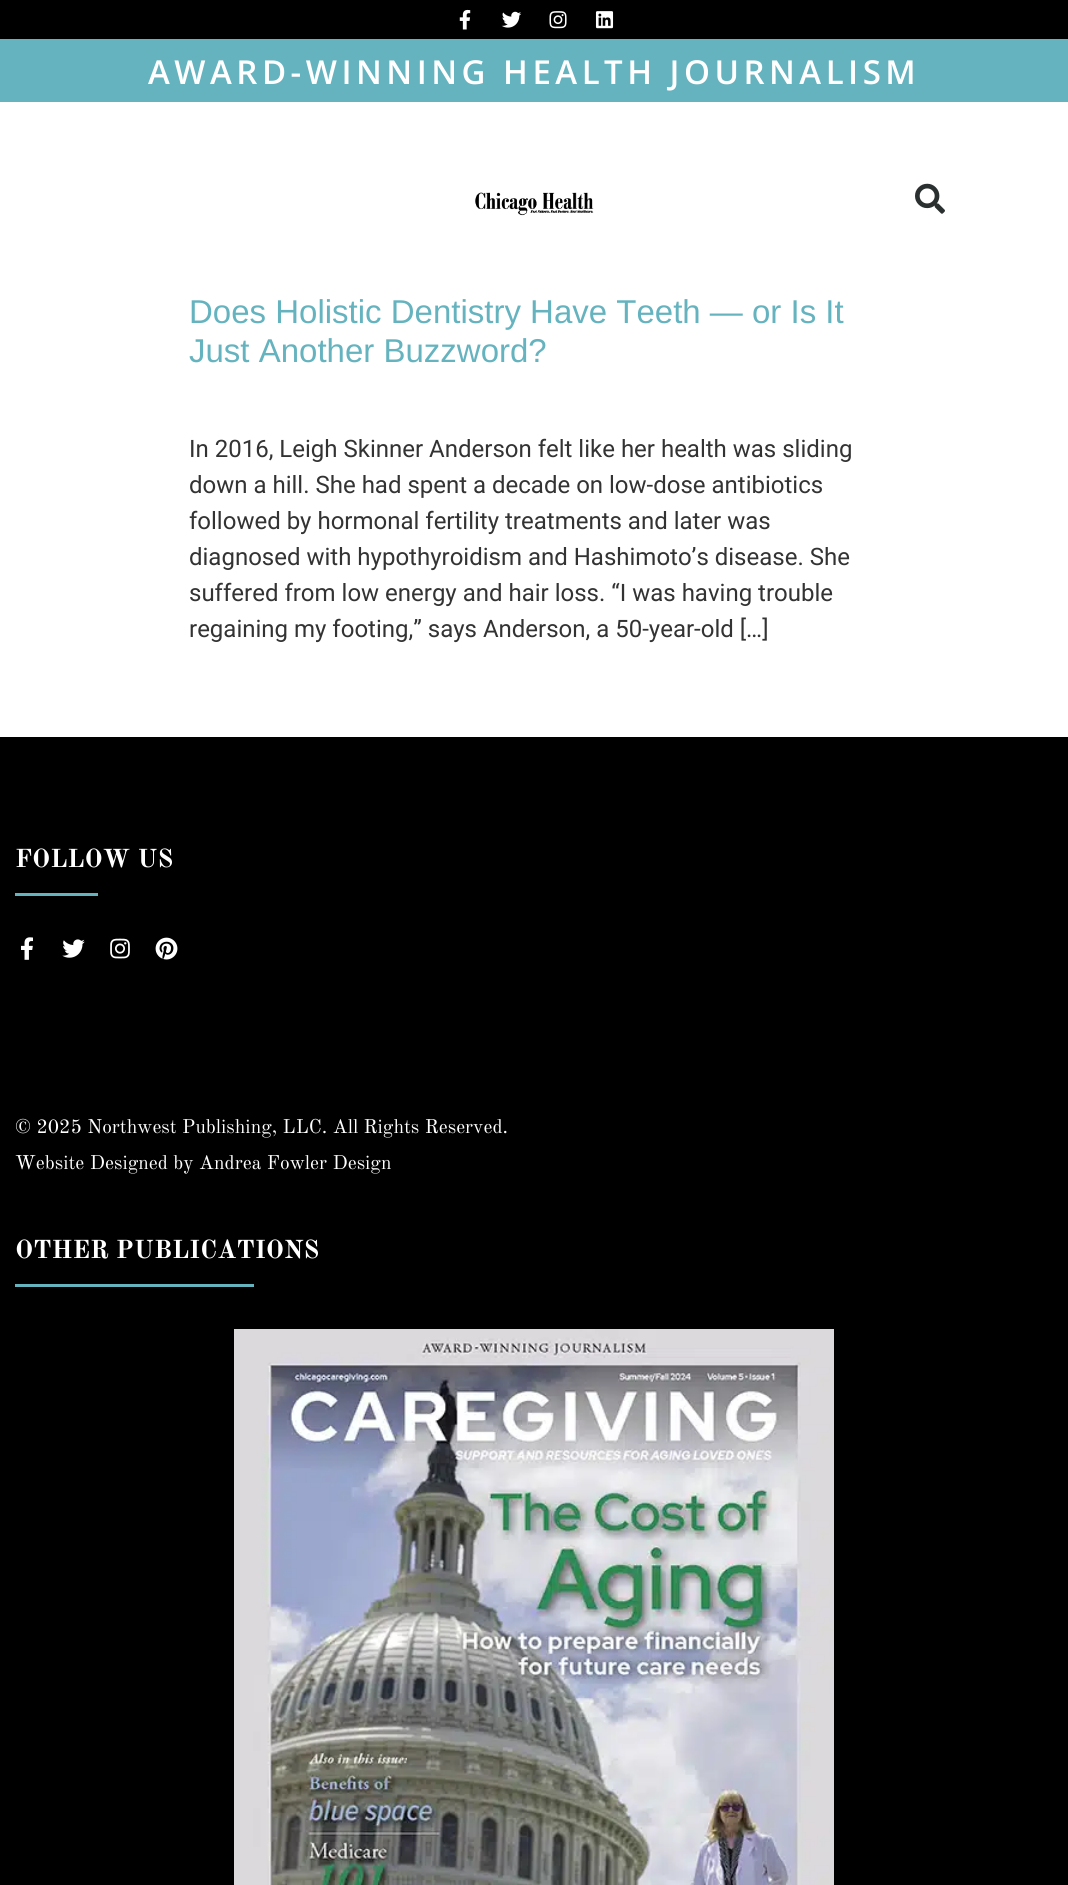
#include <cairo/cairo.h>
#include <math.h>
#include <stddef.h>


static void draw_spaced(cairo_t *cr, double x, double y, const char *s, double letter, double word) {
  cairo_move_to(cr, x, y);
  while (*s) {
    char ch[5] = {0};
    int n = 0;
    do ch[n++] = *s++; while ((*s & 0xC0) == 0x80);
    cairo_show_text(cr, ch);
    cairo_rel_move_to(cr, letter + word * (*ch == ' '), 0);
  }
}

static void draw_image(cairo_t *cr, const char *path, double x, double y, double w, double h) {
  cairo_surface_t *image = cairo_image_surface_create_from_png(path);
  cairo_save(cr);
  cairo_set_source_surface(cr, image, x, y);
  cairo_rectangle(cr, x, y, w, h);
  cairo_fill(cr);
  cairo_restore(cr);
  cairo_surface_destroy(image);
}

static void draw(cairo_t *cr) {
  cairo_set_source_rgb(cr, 1, 1, 1);
  cairo_paint(cr);
  cairo_set_source_rgb(cr, 0, 0, 0);
  cairo_rectangle(cr, 0, 0, 1068, 39);
  cairo_fill(cr);
  draw_image(cr, "images/1.png", 459, 9, 12, 21);
  draw_image(cr, "images/2.png", 501, 11, 21, 17);
  draw_image(cr, "images/3.png", 549, 11, 18, 18);
  draw_image(cr, "images/4.png", 595, 11, 19, 18);
  cairo_set_source_rgb(cr, 101 / 255.0, 179 / 255.0, 191 / 255.0);
  cairo_rectangle(cr, 0, 39, 1068, 63);
  cairo_fill(cr);
  draw_image(cr, "images/5.png", 475, 192, 119, 24);
  draw_image(cr, "images/6.png", 915, 183, 30, 31);
  cairo_set_source_rgb(cr, 0, 0, 0);
  cairo_rectangle(cr, 0, 737, 1068, 1148);
  cairo_fill(cr);
  cairo_set_source_rgb(cr, 101 / 255.0, 179 / 255.0, 191 / 255.0);
  cairo_rectangle(cr, 15, 893, 83, 3);
  cairo_fill(cr);
  draw_image(cr, "images/7.png", 21, 937, 12, 23);
  draw_image(cr, "images/8.png", 62, 939, 23, 19);
  draw_image(cr, "images/9.png", 110, 938, 20, 21);
  draw_image(cr, "images/10.png", 155, 937, 23, 23);
  cairo_rectangle(cr, 15, 1284, 239, 3);
  cairo_fill(cr);
  draw_image(cr, "images/11.png", 234, 1329, 600, 556);
  cairo_select_font_face(cr, "Open Sans SemiBold", CAIRO_FONT_SLANT_NORMAL, CAIRO_FONT_WEIGHT_NORMAL);
  cairo_set_font_size(cr, 33);
  cairo_set_source_rgb(cr, 1, 1, 1);
  draw_spaced(cr, 148, 84, "AWARD-WINNING HEALTH JOURNALISM", 4.5, 0);
  cairo_select_font_face(cr, "Liberation Sans", CAIRO_FONT_SLANT_NORMAL, CAIRO_FONT_WEIGHT_NORMAL);
  cairo_set_source_rgb(cr, 101 / 255.0, 179 / 255.0, 191 / 255.0);
  cairo_move_to(cr, 189, 323);
  cairo_show_text(cr, "Does Holistic Dentistry Have Teeth — or Is It");
  cairo_move_to(cr, 189, 362);
  cairo_show_text(cr, "Just Another Buzzword?");
  cairo_select_font_face(cr, "Roboto", CAIRO_FONT_SLANT_NORMAL, CAIRO_FONT_WEIGHT_NORMAL);
  cairo_set_font_size(cr, 24);
  cairo_set_source_rgb(cr, 51 / 255.0, 51 / 255.0, 51 / 255.0);
  cairo_move_to(cr, 189, 457);
  cairo_show_text(cr, "In 2016, Leigh Skinner Anderson felt like her health was sliding");
  cairo_move_to(cr, 189, 493);
  cairo_show_text(cr, "down a hill. She had spent a decade on low-dose antibiotics");
  cairo_move_to(cr, 189, 529);
  cairo_show_text(cr, "followed by hormonal fertility treatments and later was");
  cairo_move_to(cr, 189, 565);
  cairo_show_text(cr, "diagnosed with hypothyroidism and Hashimoto’s disease. She");
  cairo_move_to(cr, 189, 601);
  cairo_show_text(cr, "suffered from low energy and hair loss. “I was having trouble");
  cairo_move_to(cr, 189, 637);
  cairo_show_text(cr, "regaining my footing,” says Anderson, a 50-year-old […]");
  cairo_select_font_face(cr, "Old Standard TT", CAIRO_FONT_SLANT_NORMAL, CAIRO_FONT_WEIGHT_BOLD);
  cairo_set_font_size(cr, 25.5);
  cairo_set_source_rgb(cr, 1, 1, 1);
  cairo_move_to(cr, 15, 867);
  cairo_show_text(cr, "FOLLOW US");
  cairo_select_font_face(cr, "Old Standard TT", CAIRO_FONT_SLANT_NORMAL, CAIRO_FONT_WEIGHT_NORMAL);
  cairo_set_font_size(cr, 19.5);
  cairo_move_to(cr, 15, 1133);
  cairo_show_text(cr, "© 2025 Northwest Publishing, LLC. All Rights Reserved.");
  cairo_move_to(cr, 15, 1169);
  cairo_show_text(cr, "Website Designed by Andrea Fowler Design");
  cairo_select_font_face(cr, "Old Standard TT", CAIRO_FONT_SLANT_NORMAL, CAIRO_FONT_WEIGHT_BOLD);
  cairo_set_font_size(cr, 25.5);
  cairo_move_to(cr, 15, 1258);
  cairo_show_text(cr, "OTHER PUBLICATIONS");
}

int main(void) {
  cairo_surface_t *surface = cairo_image_surface_create(CAIRO_FORMAT_RGB24, 1068, 1885);
  cairo_t *cr = cairo_create(surface);
  cairo_font_options_t *options = cairo_font_options_create();
  cairo_font_options_set_hint_metrics(options, CAIRO_HINT_METRICS_OFF);
  cairo_font_options_set_hint_style(options, CAIRO_HINT_STYLE_NONE);
  cairo_set_font_options(cr, options);
  cairo_set_miter_limit(cr, 4);
  draw(cr);
  cairo_surface_write_to_png(surface, "out.png");
  cairo_font_options_destroy(options);
  cairo_destroy(cr);
  cairo_surface_destroy(surface);
  return 0;
}
